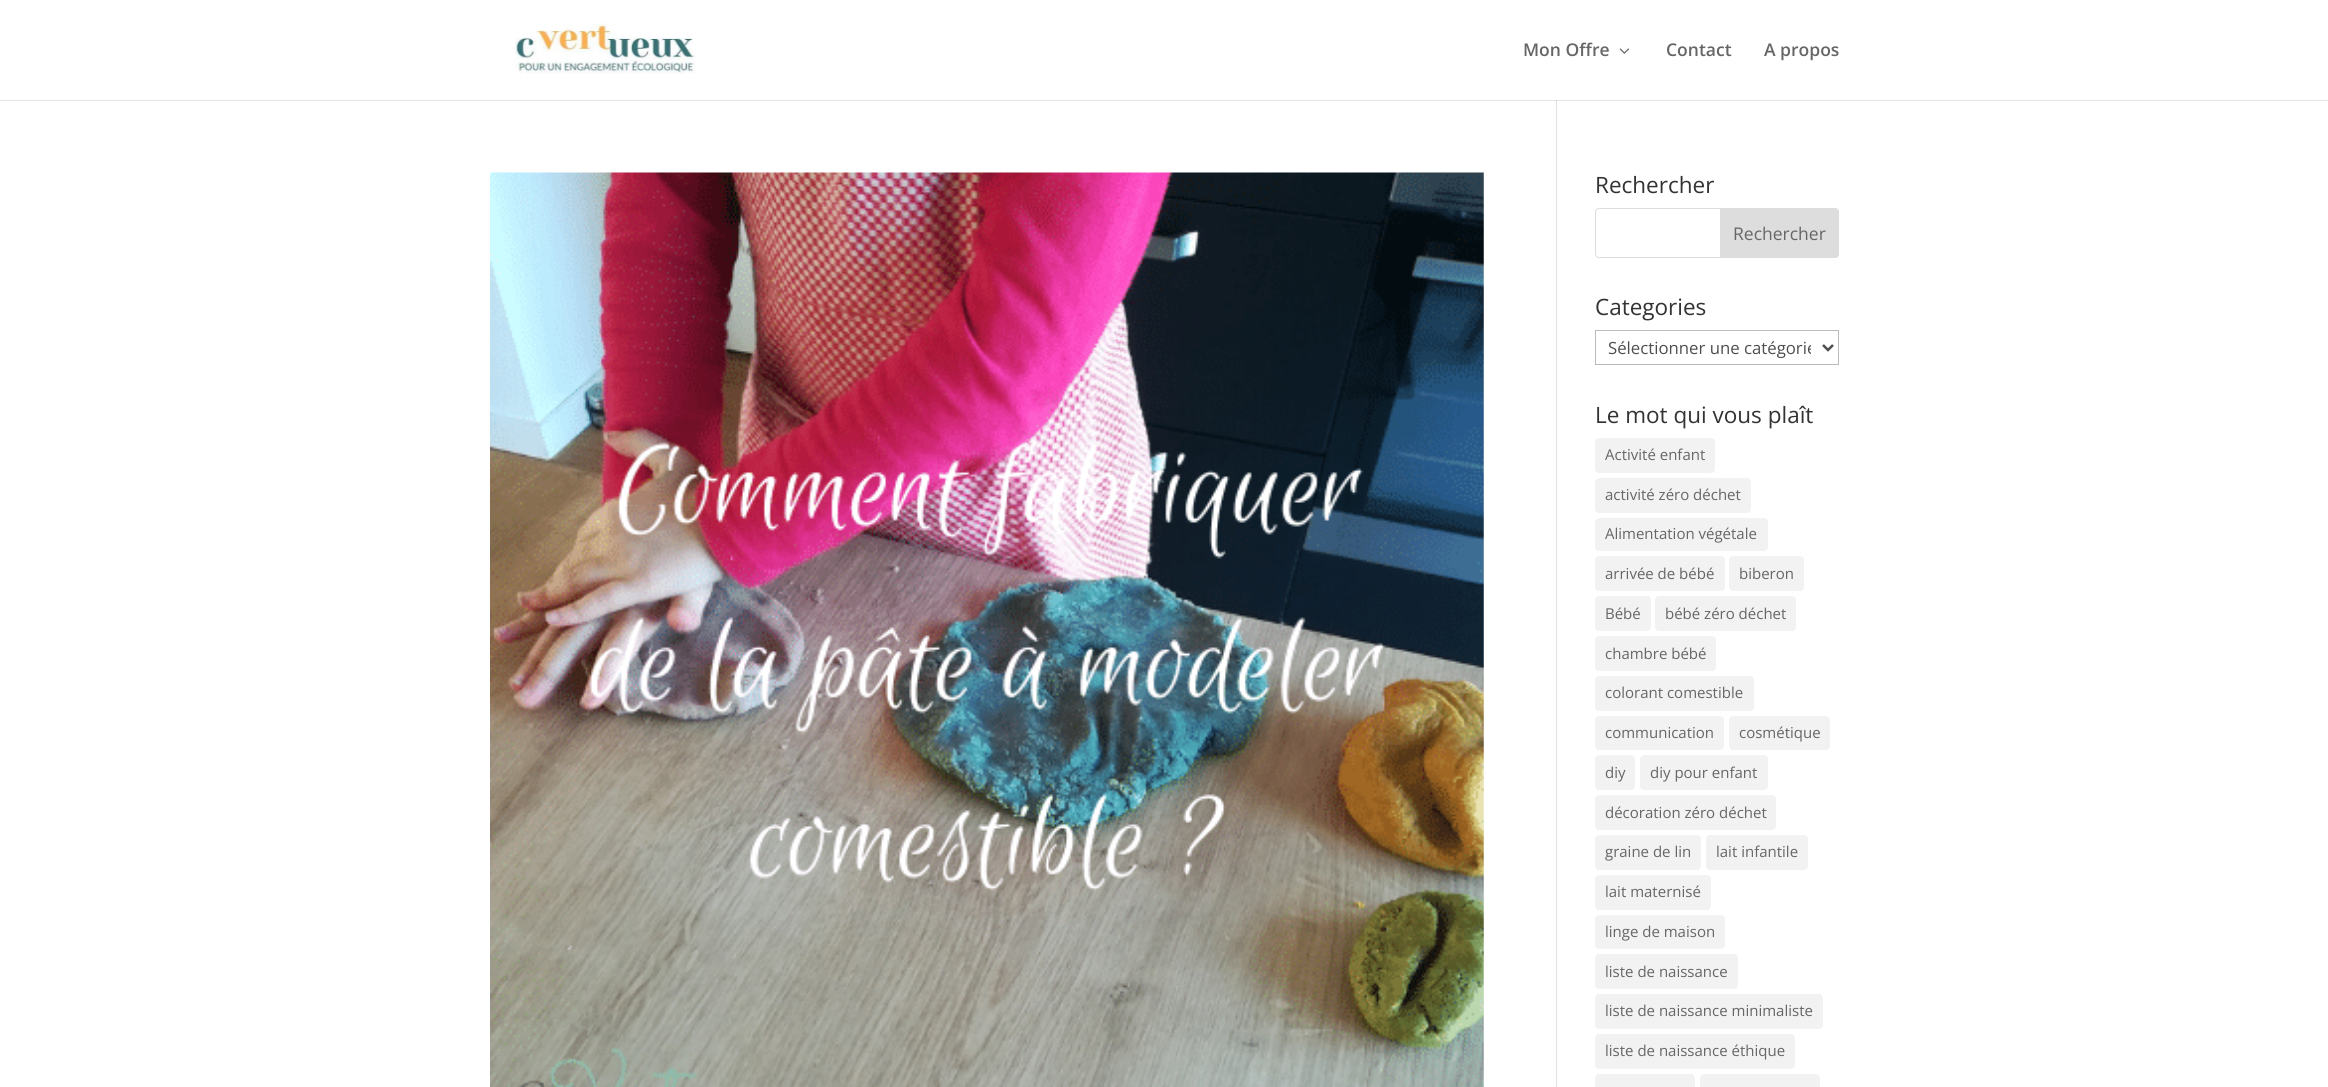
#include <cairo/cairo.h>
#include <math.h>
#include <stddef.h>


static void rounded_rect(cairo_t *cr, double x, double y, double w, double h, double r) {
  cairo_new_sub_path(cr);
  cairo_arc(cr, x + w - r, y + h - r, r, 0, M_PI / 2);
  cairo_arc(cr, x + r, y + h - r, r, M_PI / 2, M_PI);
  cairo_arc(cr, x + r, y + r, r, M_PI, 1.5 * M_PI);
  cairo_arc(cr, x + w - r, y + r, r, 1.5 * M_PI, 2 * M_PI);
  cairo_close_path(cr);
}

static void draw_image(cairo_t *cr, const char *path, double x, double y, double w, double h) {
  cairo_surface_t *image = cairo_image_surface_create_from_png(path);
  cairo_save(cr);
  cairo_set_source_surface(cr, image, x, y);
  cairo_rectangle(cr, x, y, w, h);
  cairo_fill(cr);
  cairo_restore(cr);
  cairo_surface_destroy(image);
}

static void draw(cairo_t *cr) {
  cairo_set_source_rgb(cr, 1, 1, 1);
  cairo_paint(cr);
  cairo_set_source_rgb(cr, 226 / 255.0, 226 / 255.0, 226 / 255.0);
  cairo_rectangle(cr, 1556, 100, 1, 987);
  cairo_fill(cr);
  cairo_set_source_rgba(cr, 0, 0, 0, 0.1);
  cairo_new_path(cr);
  cairo_move_to(cr, 0, 100);
  cairo_line_to(cr, 0, 101);
  cairo_line_to(cr, 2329, 101);
  cairo_line_to(cr, 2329, 1);
  cairo_line_to(cr, 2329, 100);
  cairo_close_path(cr);
  cairo_fill(cr);
  draw_image(cr, "images/1.png", 515, 23, 181, 51);
  draw_image(cr, "images/2.png", 1619, 48, 10, 6);
  draw_image(cr, "images/3.png", 490, 172, 994, 915);
  rounded_rect(cr, 1595.5, 208.5, 243, 49, 3.5);
  cairo_set_source_rgb(cr, 221 / 255.0, 221 / 255.0, 221 / 255.0);
  cairo_set_line_width(cr, 1);
  cairo_stroke(cr);
  cairo_new_path(cr);
  cairo_move_to(cr, 1720.5, 208.5);
  cairo_line_to(cr, 1835, 208.5);
  cairo_curve_to(cr, 1837, 208.5, 1838.5, 210, 1838.5, 212);
  cairo_line_to(cr, 1838.5, 254);
  cairo_curve_to(cr, 1838.5, 256, 1837, 257.5, 1835, 257.5);
  cairo_line_to(cr, 1720.5, 257.5);
  cairo_close_path(cr);
  cairo_fill_preserve(cr);
  cairo_stroke(cr);
  cairo_rectangle(cr, 1595.5, 330.5, 243, 34);
  cairo_set_source_rgb(cr, 187 / 255.0, 187 / 255.0, 187 / 255.0);
  cairo_stroke(cr);
  cairo_new_path(cr);
  cairo_move_to(cr, 1823, 345);
  cairo_line_to(cr, 1828, 350);
  cairo_line_to(cr, 1833, 345);
  cairo_set_source_rgb(cr, 78 / 255.0, 78 / 255.0, 78 / 255.0);
  cairo_set_line_width(cr, 2.5);
  cairo_stroke(cr);
  cairo_set_source_rgb(cr, 242 / 255.0, 242 / 255.0, 242 / 255.0);
  rounded_rect(cr, 1595, 438, 120, 35, 4);
  cairo_fill(cr);
  rounded_rect(cr, 1595, 478, 156, 35, 4);
  cairo_fill(cr);
  rounded_rect(cr, 1595, 518, 173, 33, 4);
  cairo_fill(cr);
  rounded_rect(cr, 1595, 556, 130, 35, 4);
  cairo_fill(cr);
  rounded_rect(cr, 1729, 556, 75, 35, 4);
  cairo_fill(cr);
  rounded_rect(cr, 1595, 596, 56, 35, 4);
  cairo_fill(cr);
  rounded_rect(cr, 1655, 596, 141, 35, 4);
  cairo_fill(cr);
  rounded_rect(cr, 1595, 636, 121, 35, 4);
  cairo_fill(cr);
  rounded_rect(cr, 1595, 676, 159, 35, 4);
  cairo_fill(cr);
  rounded_rect(cr, 1595, 716, 129, 34, 4);
  cairo_fill(cr);
  rounded_rect(cr, 1729, 716, 101, 34, 4);
  cairo_fill(cr);
  rounded_rect(cr, 1595, 755, 40, 35, 4);
  cairo_fill(cr);
  rounded_rect(cr, 1640, 755, 128, 35, 4);
  cairo_fill(cr);
  rounded_rect(cr, 1595, 795, 181, 35, 4);
  cairo_fill(cr);
  rounded_rect(cr, 1595, 835, 106, 35, 4);
  cairo_fill(cr);
  rounded_rect(cr, 1706, 835, 102, 35, 4);
  cairo_fill(cr);
  rounded_rect(cr, 1595, 875, 116, 35, 4);
  cairo_fill(cr);
  rounded_rect(cr, 1595, 915, 130, 34, 4);
  cairo_fill(cr);
  rounded_rect(cr, 1595, 954, 143, 35, 4);
  cairo_fill(cr);
  rounded_rect(cr, 1595, 994, 228, 35, 4);
  cairo_fill(cr);
  rounded_rect(cr, 1595, 1034, 200, 35, 4);
  cairo_fill(cr);
  rounded_rect(cr, 1595, 1074, 100, 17, 4);
  cairo_fill(cr);
  rounded_rect(cr, 1700, 1074, 120, 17, 4);
  cairo_fill(cr);
  cairo_select_font_face(cr, "Open Sans SemiBold", CAIRO_FONT_SLANT_NORMAL, CAIRO_FONT_WEIGHT_NORMAL);
  cairo_set_font_size(cr, 17.5);
  cairo_set_source_rgb(cr, 102 / 255.0, 102 / 255.0, 102 / 255.0);
  cairo_move_to(cr, 1523, 56);
  cairo_show_text(cr, "Mon Offre");
  cairo_move_to(cr, 1666, 56);
  cairo_show_text(cr, "Contact");
  cairo_move_to(cr, 1764, 56);
  cairo_show_text(cr, "A propos");
  cairo_select_font_face(cr, "Open Sans", CAIRO_FONT_SLANT_NORMAL, CAIRO_FONT_WEIGHT_NORMAL);
  cairo_set_font_size(cr, 22.5);
  cairo_set_source_rgb(cr, 51 / 255.0, 51 / 255.0, 51 / 255.0);
  cairo_move_to(cr, 1595, 193);
  cairo_show_text(cr, "Rechercher");
  cairo_set_font_size(cr, 17.5);
  cairo_set_source_rgb(cr, 102 / 255.0, 102 / 255.0, 102 / 255.0);
  cairo_move_to(cr, 1733, 240);
  cairo_show_text(cr, "Rechercher");
  cairo_set_font_size(cr, 22.5);
  cairo_set_source_rgb(cr, 51 / 255.0, 51 / 255.0, 51 / 255.0);
  cairo_move_to(cr, 1595, 315);
  cairo_show_text(cr, "Categories");
  cairo_save(cr);
  cairo_rectangle(cr, 1608, 335, 203, 25);
  cairo_clip(cr);
  cairo_set_font_size(cr, 16.75);
  cairo_set_source_rgb(cr, 78 / 255.0, 78 / 255.0, 78 / 255.0);
  cairo_move_to(cr, 1608, 354);
  cairo_show_text(cr, "Sélectionner une catégorie");
  cairo_restore(cr);
  cairo_move_to(cr, 1595, 423);
  cairo_show_text(cr, "Le mot qui vous plaît");
  cairo_set_font_size(cr, 15);
  cairo_set_source_rgb(cr, 102 / 255.0, 102 / 255.0, 102 / 255.0);
  cairo_move_to(cr, 1605, 460);
  cairo_show_text(cr, "Activité enfant");
  cairo_move_to(cr, 1605, 500);
  cairo_show_text(cr, "activité zéro déchet");
  cairo_move_to(cr, 1605, 539);
  cairo_show_text(cr, "Alimentation végétale");
  cairo_move_to(cr, 1605, 579);
  cairo_show_text(cr, "arrivée de bébé");
  cairo_move_to(cr, 1739, 579);
  cairo_show_text(cr, "biberon");
  cairo_move_to(cr, 1605, 619);
  cairo_show_text(cr, "Bébé");
  cairo_move_to(cr, 1665, 619);
  cairo_show_text(cr, "bébé zéro déchet");
  cairo_move_to(cr, 1605, 659);
  cairo_show_text(cr, "chambre bébé");
  cairo_move_to(cr, 1605, 698);
  cairo_show_text(cr, "colorant comestible");
  cairo_move_to(cr, 1605, 738);
  cairo_show_text(cr, "communication");
  cairo_move_to(cr, 1739, 738);
  cairo_show_text(cr, "cosmétique");
  cairo_move_to(cr, 1605, 778);
  cairo_show_text(cr, "diy");
  cairo_move_to(cr, 1650, 778);
  cairo_show_text(cr, "diy pour enfant");
  cairo_move_to(cr, 1605, 818);
  cairo_show_text(cr, "décoration zéro déchet");
  cairo_move_to(cr, 1605, 857);
  cairo_show_text(cr, "graine de lin");
  cairo_move_to(cr, 1716, 857);
  cairo_show_text(cr, "lait infantile");
  cairo_move_to(cr, 1605, 897);
  cairo_show_text(cr, "lait maternisé");
  cairo_move_to(cr, 1605, 937);
  cairo_show_text(cr, "linge de maison");
  cairo_move_to(cr, 1605, 977);
  cairo_show_text(cr, "liste de naissance");
  cairo_move_to(cr, 1605, 1016);
  cairo_show_text(cr, "liste de naissance minimaliste");
  cairo_move_to(cr, 1605, 1056);
  cairo_show_text(cr, "liste de naissance éthique");
}

int main(void) {
  cairo_surface_t *surface = cairo_image_surface_create(CAIRO_FORMAT_RGB24, 2328, 1087);
  cairo_t *cr = cairo_create(surface);
  cairo_font_options_t *options = cairo_font_options_create();
  cairo_font_options_set_hint_metrics(options, CAIRO_HINT_METRICS_OFF);
  cairo_font_options_set_hint_style(options, CAIRO_HINT_STYLE_NONE);
  cairo_set_font_options(cr, options);
  cairo_set_miter_limit(cr, 4);
  draw(cr);
  cairo_surface_write_to_png(surface, "out.png");
  cairo_font_options_destroy(options);
  cairo_destroy(cr);
  cairo_surface_destroy(surface);
  return 0;
}
